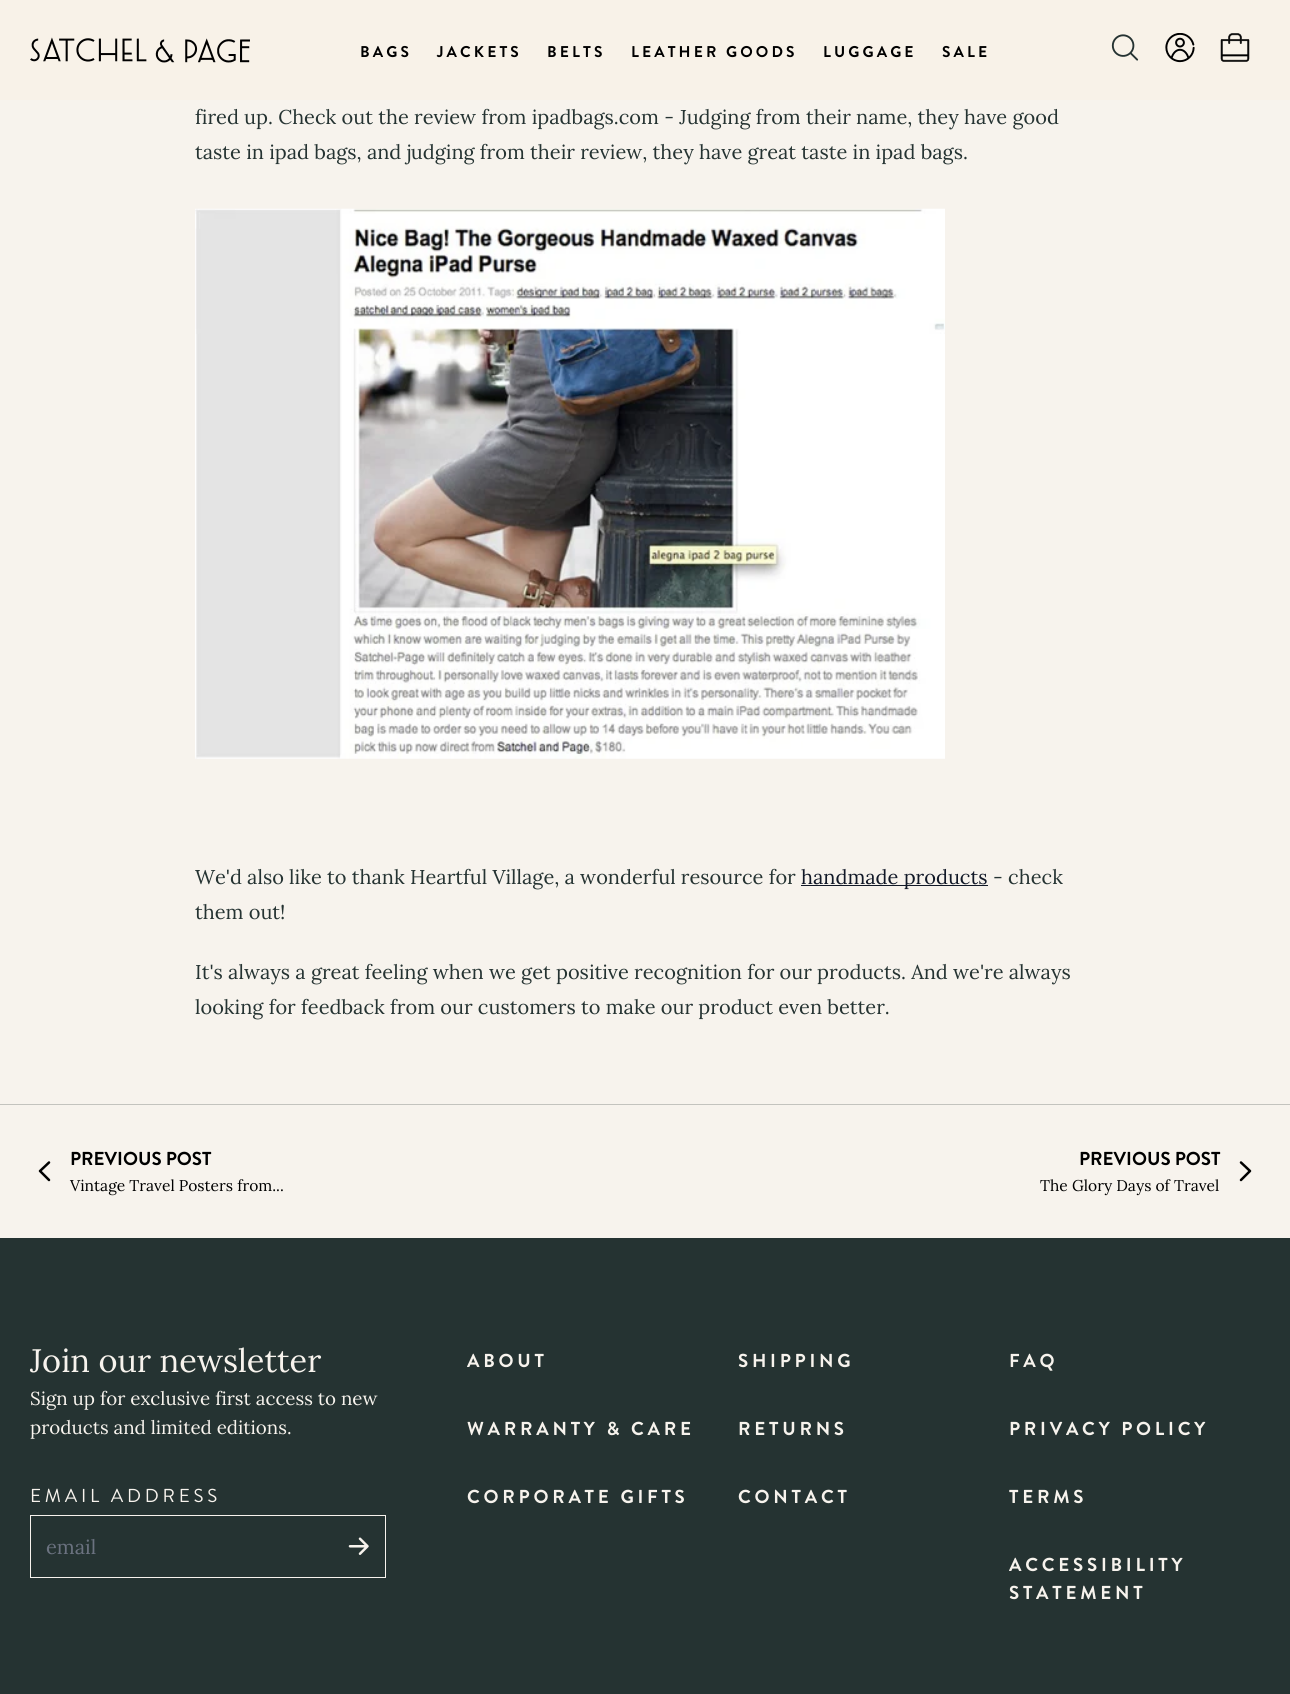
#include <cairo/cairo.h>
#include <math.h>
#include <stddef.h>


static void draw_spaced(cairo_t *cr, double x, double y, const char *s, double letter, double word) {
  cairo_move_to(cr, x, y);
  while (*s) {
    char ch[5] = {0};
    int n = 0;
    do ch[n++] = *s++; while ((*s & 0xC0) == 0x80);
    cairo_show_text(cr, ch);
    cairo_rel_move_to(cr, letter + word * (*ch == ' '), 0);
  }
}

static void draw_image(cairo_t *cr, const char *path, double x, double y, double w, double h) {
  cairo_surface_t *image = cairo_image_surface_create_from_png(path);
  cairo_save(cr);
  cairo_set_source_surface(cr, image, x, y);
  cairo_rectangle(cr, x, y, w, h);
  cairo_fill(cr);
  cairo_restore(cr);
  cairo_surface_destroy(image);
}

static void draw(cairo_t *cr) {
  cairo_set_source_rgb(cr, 247 / 255.0, 243 / 255.0, 237 / 255.0);
  cairo_paint(cr);
  cairo_set_source_rgb(cr, 248 / 255.0, 242 / 255.0, 232 / 255.0);
  cairo_rectangle(cr, 0, 0, 1290, 100);
  cairo_fill(cr);
  draw_image(cr, "images/1.png", 30, 37, 220, 26);
  draw_image(cr, "images/2.png", 1111, 34, 28, 27);
  draw_image(cr, "images/3.png", 1165, 33, 30, 30);
  draw_image(cr, "images/4.png", 1220, 33, 30, 29);
  draw_image(cr, "images/5.png", 195, 208, 750, 551);
  cairo_set_source_rgb(cr, 17 / 255.0, 24 / 255.0, 39 / 255.0);
  cairo_rectangle(cr, 801, 885, 187, 1);
  cairo_fill(cr);
  cairo_set_source_rgb(cr, 195 / 255.0, 195 / 255.0, 190 / 255.0);
  cairo_rectangle(cr, 0, 1104, 1290, 1);
  cairo_fill(cr);
  cairo_new_path(cr);
  cairo_move_to(cr, 49, 1180);
  cairo_line_to(cr, 40, 1171);
  cairo_line_to(cr, 49, 1162.5);
  cairo_set_source_rgb(cr, 0, 0, 0);
  cairo_set_line_width(cr, 2.5);
  cairo_set_line_cap(cr, CAIRO_LINE_CAP_ROUND);
  cairo_set_line_join(cr, CAIRO_LINE_JOIN_ROUND);
  cairo_stroke(cr);
  cairo_new_path(cr);
  cairo_move_to(cr, 1241, 1162.5);
  cairo_line_to(cr, 1250, 1171);
  cairo_line_to(cr, 1241, 1180);
  cairo_stroke(cr);
  cairo_set_source_rgb(cr, 37 / 255.0, 51 / 255.0, 50 / 255.0);
  cairo_rectangle(cr, 0, 1238, 1290, 456);
  cairo_fill(cr);
  cairo_rectangle(cr, 30.5, 1515.5, 355, 62);
  cairo_set_source_rgb(cr, 247 / 255.0, 243 / 255.0, 237 / 255.0);
  cairo_set_line_width(cr, 1);
  cairo_set_line_cap(cr, CAIRO_LINE_CAP_BUTT);
  cairo_set_line_join(cr, CAIRO_LINE_JOIN_MITER);
  cairo_stroke(cr);
  draw_image(cr, "images/6.png", 348, 1537, 21, 18);
  cairo_select_font_face(cr, "Brandon Grotesque", CAIRO_FONT_SLANT_NORMAL, CAIRO_FONT_WEIGHT_BOLD);
  cairo_set_font_size(cr, 15.6);
  cairo_set_source_rgb(cr, 0, 0, 0);
  draw_spaced(cr, 360, 57, "BAGS", 3.1, 0);
  draw_spaced(cr, 437, 57, "JACKETS", 3.1, 0);
  draw_spaced(cr, 547, 57, "BELTS", 3.1, 0);
  draw_spaced(cr, 631, 57, "LEATHER GOODS", 3.1, 0);
  draw_spaced(cr, 823, 57, "LUGGAGE", 3.1, 0);
  draw_spaced(cr, 942, 57, "SALE", 3.1, 0);
  cairo_select_font_face(cr, "Lora", CAIRO_FONT_SLANT_NORMAL, CAIRO_FONT_WEIGHT_NORMAL);
  cairo_set_font_size(cr, 20);
  cairo_set_source_rgb(cr, 37 / 255.0, 51 / 255.0, 50 / 255.0);
  cairo_move_to(cr, 195, 124);
  cairo_show_text(cr, "fired up. Check out the review from ipadbags.com - Judging from their name, they have good");
  cairo_move_to(cr, 195, 159);
  cairo_show_text(cr, "taste in ipad bags, and judging from their review, they have great taste in ipad bags.");
  cairo_move_to(cr, 195, 884);
  cairo_show_text(cr, "We'd also like to thank Heartful Village, a wonderful resource for");
  cairo_set_source_rgb(cr, 17 / 255.0, 24 / 255.0, 39 / 255.0);
  cairo_move_to(cr, 801, 884);
  cairo_show_text(cr, "handmade products");
  cairo_set_source_rgb(cr, 37 / 255.0, 51 / 255.0, 50 / 255.0);
  cairo_move_to(cr, 993, 884);
  cairo_show_text(cr, "- check");
  cairo_move_to(cr, 195, 919);
  cairo_show_text(cr, "them out!");
  cairo_move_to(cr, 195, 979);
  cairo_show_text(cr, "It's always a great feeling when we get positive recognition for our products. And we're always");
  cairo_move_to(cr, 195, 1014);
  cairo_show_text(cr, "looking for feedback from our customers to make our product even better.");
  cairo_select_font_face(cr, "Brandon Grotesque", CAIRO_FONT_SLANT_NORMAL, CAIRO_FONT_WEIGHT_BOLD);
  cairo_set_font_size(cr, 18.75);
  cairo_set_source_rgb(cr, 0, 0, 0);
  cairo_move_to(cr, 70, 1165);
  cairo_show_text(cr, "PREVIOUS POST");
  cairo_select_font_face(cr, "Lora", CAIRO_FONT_SLANT_NORMAL, CAIRO_FONT_WEIGHT_NORMAL);
  cairo_set_font_size(cr, 15.6);
  cairo_move_to(cr, 70, 1191);
  cairo_show_text(cr, "Vintage Travel Posters from...");
  cairo_select_font_face(cr, "Brandon Grotesque", CAIRO_FONT_SLANT_NORMAL, CAIRO_FONT_WEIGHT_BOLD);
  cairo_set_font_size(cr, 18.75);
  cairo_move_to(cr, 1079, 1165);
  cairo_show_text(cr, "PREVIOUS POST");
  cairo_select_font_face(cr, "Lora", CAIRO_FONT_SLANT_NORMAL, CAIRO_FONT_WEIGHT_NORMAL);
  cairo_set_font_size(cr, 15.6);
  cairo_move_to(cr, 1040, 1191);
  cairo_show_text(cr, "The Glory Days of Travel");
  cairo_set_font_size(cr, 32.5);
  cairo_set_source_rgb(cr, 247 / 255.0, 243 / 255.0, 237 / 255.0);
  cairo_move_to(cr, 30, 1372);
  cairo_show_text(cr, "Join our newsletter");
  cairo_set_font_size(cr, 18.75);
  cairo_move_to(cr, 30, 1405);
  cairo_show_text(cr, "Sign up for exclusive first access to new");
  cairo_move_to(cr, 30, 1434);
  cairo_show_text(cr, "products and limited editions.");
  cairo_select_font_face(cr, "Brandon Grotesque", CAIRO_FONT_SLANT_NORMAL, CAIRO_FONT_WEIGHT_NORMAL);
  draw_spaced(cr, 30, 1502, "EMAIL ADDRESS", 3.75, 0);
  cairo_select_font_face(cr, "Lora", CAIRO_FONT_SLANT_NORMAL, CAIRO_FONT_WEIGHT_NORMAL);
  cairo_set_font_size(cr, 20);
  cairo_set_source_rgb(cr, 107 / 255.0, 114 / 255.0, 128 / 255.0);
  cairo_move_to(cr, 46, 1554);
  cairo_show_text(cr, "email");
  cairo_select_font_face(cr, "Brandon Grotesque", CAIRO_FONT_SLANT_NORMAL, CAIRO_FONT_WEIGHT_BOLD);
  cairo_set_font_size(cr, 18.75);
  cairo_set_source_rgb(cr, 247 / 255.0, 243 / 255.0, 237 / 255.0);
  draw_spaced(cr, 467, 1367, "ABOUT", 3.75, 0);
  draw_spaced(cr, 467, 1435, "WARRANTY & CARE", 3.75, 0);
  draw_spaced(cr, 467, 1503, "CORPORATE GIFTS", 3.75, 0);
  draw_spaced(cr, 738, 1367, "SHIPPING", 3.75, 0);
  draw_spaced(cr, 738, 1435, "RETURNS", 3.75, 0);
  draw_spaced(cr, 738, 1503, "CONTACT", 3.75, 0);
  draw_spaced(cr, 1009, 1367, "FAQ", 3.75, 0);
  draw_spaced(cr, 1009, 1435, "PRIVACY POLICY", 3.75, 0);
  draw_spaced(cr, 1009, 1503, "TERMS", 3.75, 0);
  draw_spaced(cr, 1009, 1571, "ACCESSIBILITY", 3.75, 0);
  draw_spaced(cr, 1009, 1599, "STATEMENT", 3.75, 0);
}

int main(void) {
  cairo_surface_t *surface = cairo_image_surface_create(CAIRO_FORMAT_RGB24, 1290, 1694);
  cairo_t *cr = cairo_create(surface);
  cairo_font_options_t *options = cairo_font_options_create();
  cairo_font_options_set_hint_metrics(options, CAIRO_HINT_METRICS_OFF);
  cairo_font_options_set_hint_style(options, CAIRO_HINT_STYLE_NONE);
  cairo_set_font_options(cr, options);
  cairo_set_miter_limit(cr, 4);
  draw(cr);
  cairo_surface_write_to_png(surface, "out.png");
  cairo_font_options_destroy(options);
  cairo_destroy(cr);
  cairo_surface_destroy(surface);
  return 0;
}
